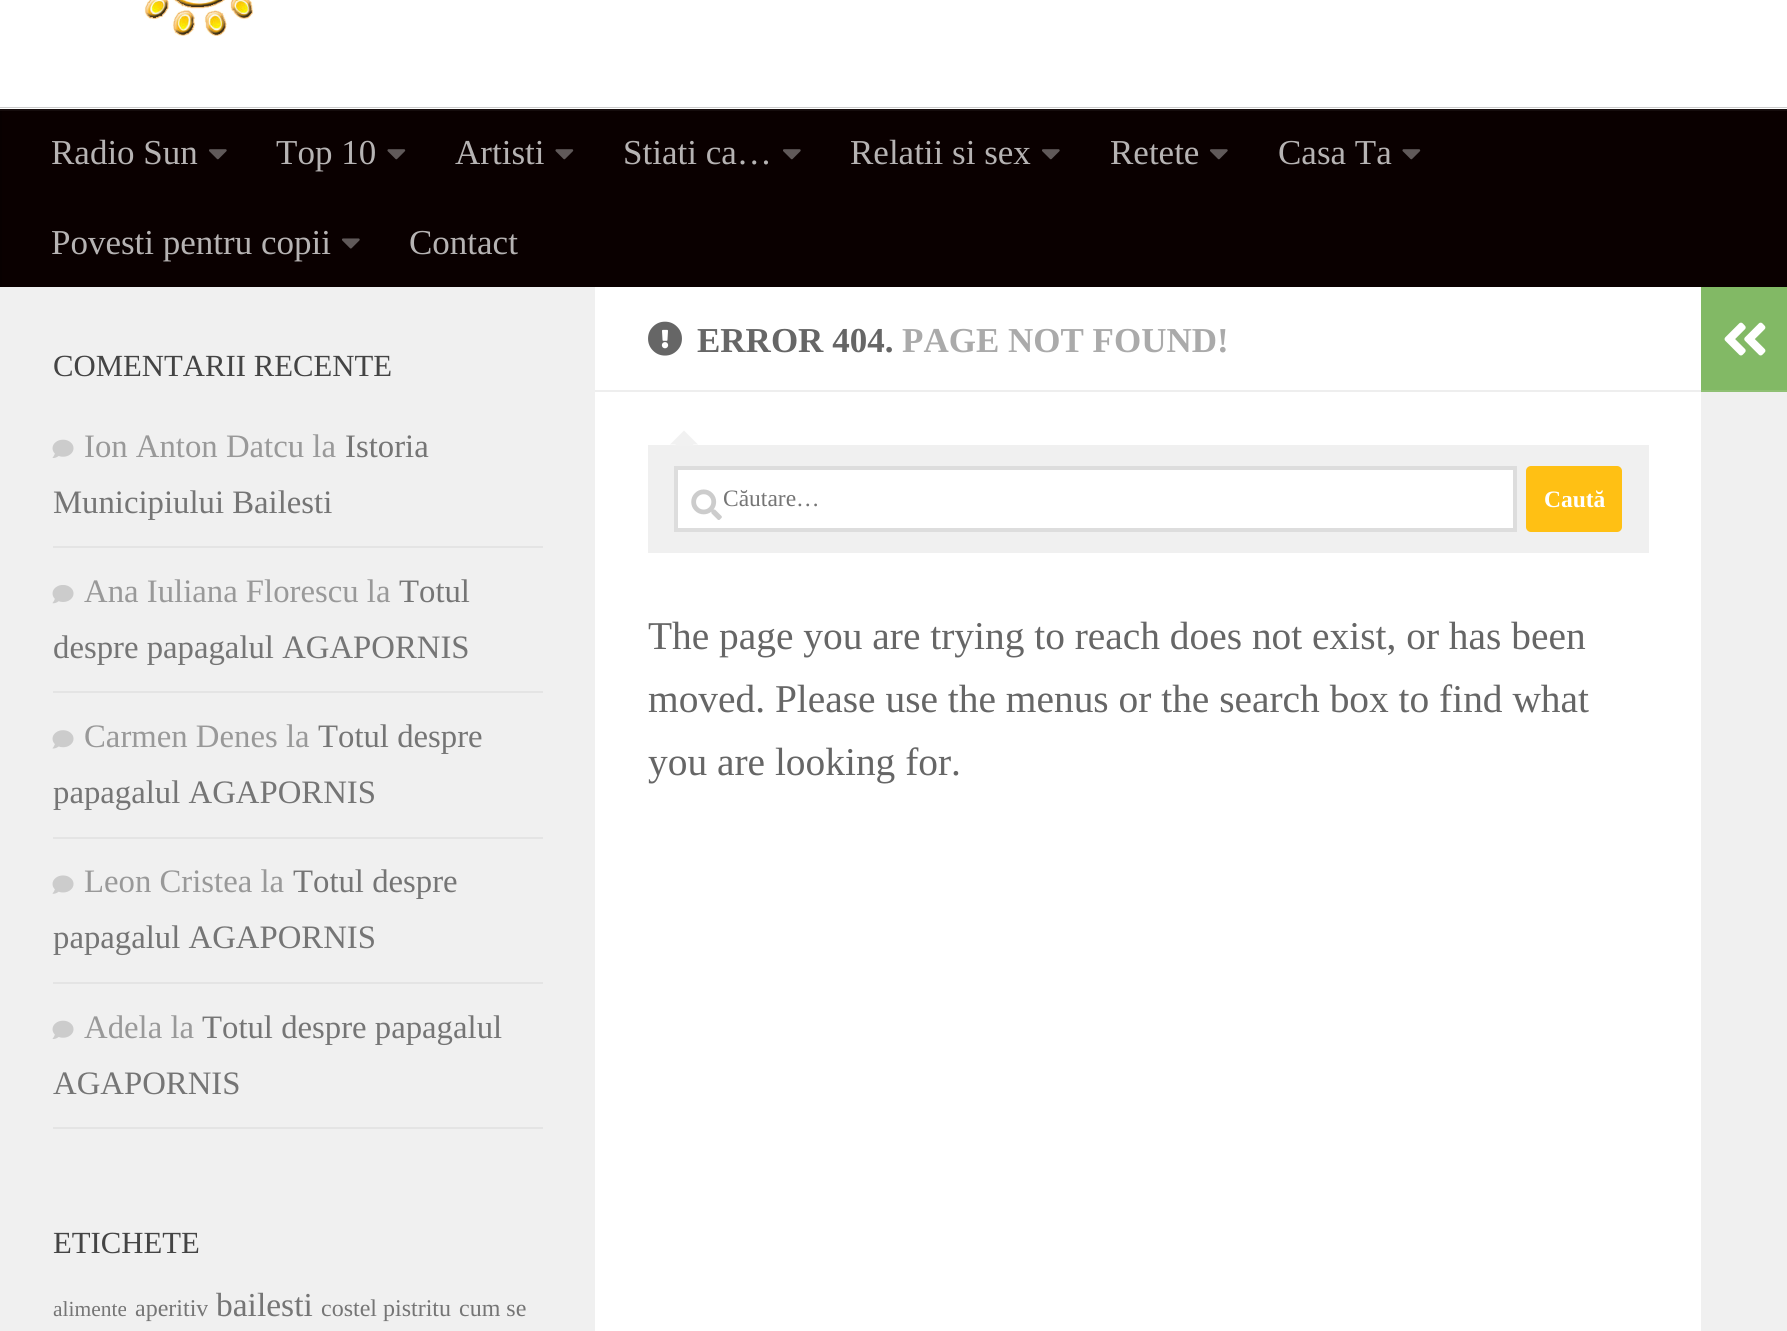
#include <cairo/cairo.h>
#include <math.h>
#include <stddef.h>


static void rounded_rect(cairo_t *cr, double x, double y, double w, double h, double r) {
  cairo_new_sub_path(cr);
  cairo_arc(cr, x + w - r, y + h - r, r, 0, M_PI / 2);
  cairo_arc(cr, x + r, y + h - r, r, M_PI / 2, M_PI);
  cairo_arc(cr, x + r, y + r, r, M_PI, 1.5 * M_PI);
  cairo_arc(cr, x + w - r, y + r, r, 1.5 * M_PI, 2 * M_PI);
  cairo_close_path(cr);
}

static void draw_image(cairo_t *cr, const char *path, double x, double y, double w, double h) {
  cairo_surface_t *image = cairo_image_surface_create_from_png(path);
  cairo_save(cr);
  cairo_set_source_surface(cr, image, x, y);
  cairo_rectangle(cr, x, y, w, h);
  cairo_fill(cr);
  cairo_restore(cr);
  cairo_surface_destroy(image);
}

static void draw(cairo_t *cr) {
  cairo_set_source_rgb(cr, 1, 1, 1);
  cairo_paint(cr);
  draw_image(cr, "images/1.png", 144, 0, 110, 36);
  cairo_set_source_rgb(cr, 204 / 255.0, 204 / 255.0, 204 / 255.0);
  cairo_new_path(cr);
  cairo_move_to(cr, 0, 107);
  cairo_line_to(cr, 0, 108);
  cairo_line_to(cr, 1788, 108);
  cairo_line_to(cr, 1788, 285);
  cairo_line_to(cr, 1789, 285);
  cairo_line_to(cr, 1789, 107);
  cairo_close_path(cr);
  cairo_fill(cr);
  cairo_set_source_rgb(cr, 10 / 255.0, 0, 0);
  cairo_rectangle(cr, 2, 111, 1785, 176);
  cairo_fill(cr);
  cairo_set_source_rgb(cr, 8 / 255.0, 0, 0);
  cairo_rectangle(cr, 0, 109, 2, 178);
  cairo_fill(cr);
  cairo_set_source_rgb(cr, 22 / 255.0, 13 / 255.0, 13 / 255.0);
  cairo_rectangle(cr, 0, 109, 1787, 2);
  cairo_fill(cr);
  draw_image(cr, "images/2.png", 209, 149, 18, 11);
  draw_image(cr, "images/3.png", 387, 149, 19, 11);
  draw_image(cr, "images/3.png", 555, 149, 19, 11);
  draw_image(cr, "images/2.png", 783, 149, 18, 11);
  draw_image(cr, "images/2.png", 1042, 149, 18, 11);
  draw_image(cr, "images/2.png", 1210, 149, 18, 11);
  draw_image(cr, "images/3.png", 1402, 149, 19, 11);
  draw_image(cr, "images/4.png", 342, 238, 18, 11);
  cairo_set_source_rgb(cr, 240 / 255.0, 240 / 255.0, 240 / 255.0);
  cairo_rectangle(cr, 0, 287, 595, 1044);
  cairo_fill(cr);
  cairo_set_source_rgb(cr, 228 / 255.0, 228 / 255.0, 228 / 255.0);
  cairo_rectangle(cr, 53, 546, 490, 2);
  cairo_fill(cr);
  draw_image(cr, "images/5.png", 52, 439, 22, 19);
  cairo_rectangle(cr, 53, 691, 490, 2);
  cairo_fill(cr);
  draw_image(cr, "images/6.png", 52, 585, 22, 19);
  cairo_rectangle(cr, 53, 837, 490, 2);
  cairo_fill(cr);
  draw_image(cr, "images/7.png", 52, 730, 22, 19);
  cairo_rectangle(cr, 53, 982, 490, 2);
  cairo_fill(cr);
  draw_image(cr, "images/8.png", 52, 875, 22, 19);
  cairo_rectangle(cr, 53, 1127, 490, 2);
  cairo_fill(cr);
  draw_image(cr, "images/5.png", 52, 1020, 22, 19);
  cairo_set_source_rgb(cr, 238 / 255.0, 238 / 255.0, 238 / 255.0);
  cairo_rectangle(cr, 595, 390, 1106, 2);
  cairo_fill(cr);
  draw_image(cr, "images/9.png", 648, 321, 34, 35);
  cairo_set_source_rgb(cr, 240 / 255.0, 240 / 255.0, 240 / 255.0);
  cairo_rectangle(cr, 648, 445, 1001, 108);
  cairo_fill(cr);
  cairo_set_source_rgb(cr, 241 / 255.0, 241 / 255.0, 241 / 255.0);
  cairo_new_path(cr);
  cairo_move_to(cr, 698, 444.5);
  cairo_line_to(cr, 670, 444.5);
  cairo_line_to(cr, 684, 430.5);
  cairo_close_path(cr);
  cairo_fill(cr);
  cairo_new_path(cr);
  cairo_move_to(cr, 695, 446);
  cairo_line_to(cr, 674, 446);
  cairo_line_to(cr, 684, 436);
  cairo_close_path(cr);
  cairo_fill(cr);
  cairo_set_source_rgb(cr, 1, 1, 1);
  cairo_rectangle(cr, 676, 468, 839, 62);
  cairo_fill_preserve(cr);
  cairo_set_source_rgb(cr, 221 / 255.0, 221 / 255.0, 221 / 255.0);
  cairo_set_line_width(cr, 4);
  cairo_stroke(cr);
  draw_image(cr, "images/10.png", 691, 489, 31, 31);
  cairo_set_source_rgb(cr, 1, 192 / 255.0, 20 / 255.0);
  rounded_rect(cr, 1526, 466, 96, 66, 5);
  cairo_fill(cr);
  cairo_set_source_rgb(cr, 130 / 255.0, 185 / 255.0, 101 / 255.0);
  cairo_rectangle(cr, 1701, 287, 86, 103);
  cairo_fill(cr);
  cairo_set_source_rgb(cr, 143 / 255.0, 192 / 255.0, 116 / 255.0);
  cairo_rectangle(cr, 1701, 390, 86, 2);
  cairo_fill(cr);
  draw_image(cr, "images/11.png", 1724, 322, 42, 34);
  cairo_set_source_rgb(cr, 240 / 255.0, 240 / 255.0, 240 / 255.0);
  cairo_rectangle(cr, 1701, 392, 86, 939);
  cairo_fill(cr);
  cairo_select_font_face(cr, "Liberation Serif", CAIRO_FONT_SLANT_NORMAL, CAIRO_FONT_WEIGHT_NORMAL);
  cairo_set_font_size(cr, 35);
  cairo_set_source_rgb(cr, 182 / 255.0, 179 / 255.0, 179 / 255.0);
  cairo_move_to(cr, 51, 164);
  cairo_show_text(cr, "Radio Sun");
  cairo_move_to(cr, 276, 164);
  cairo_show_text(cr, "Top 10");
  cairo_move_to(cr, 455, 164);
  cairo_show_text(cr, "Artisti");
  cairo_move_to(cr, 623, 164);
  cairo_show_text(cr, "Stiati ca…");
  cairo_move_to(cr, 850, 164);
  cairo_show_text(cr, "Relatii si sex");
  cairo_move_to(cr, 1110, 164);
  cairo_show_text(cr, "Retete");
  cairo_move_to(cr, 1278, 164);
  cairo_show_text(cr, "Casa Ta");
  cairo_move_to(cr, 51, 254);
  cairo_show_text(cr, "Povesti pentru copii");
  cairo_move_to(cr, 409, 254);
  cairo_show_text(cr, "Contact");
  cairo_set_font_size(cr, 30.75);
  cairo_set_source_rgb(cr, 68 / 255.0, 68 / 255.0, 68 / 255.0);
  cairo_move_to(cr, 53, 376);
  cairo_show_text(cr, "COMENTARII RECENTE");
  cairo_set_font_size(cr, 32.75);
  cairo_set_source_rgb(cr, 153 / 255.0, 153 / 255.0, 153 / 255.0);
  cairo_move_to(cr, 84, 457);
  cairo_show_text(cr, "Ion Anton Datcu la");
  cairo_set_source_rgb(cr, 117 / 255.0, 117 / 255.0, 117 / 255.0);
  cairo_move_to(cr, 345, 457);
  cairo_show_text(cr, "Istoria");
  cairo_move_to(cr, 53, 513);
  cairo_show_text(cr, "Municipiului Bailesti");
  cairo_set_source_rgb(cr, 153 / 255.0, 153 / 255.0, 153 / 255.0);
  cairo_move_to(cr, 84, 602);
  cairo_show_text(cr, "Ana Iuliana Florescu la");
  cairo_set_source_rgb(cr, 117 / 255.0, 117 / 255.0, 117 / 255.0);
  cairo_move_to(cr, 399, 602);
  cairo_show_text(cr, "Totul");
  cairo_move_to(cr, 53, 658);
  cairo_show_text(cr, "despre papagalul AGAPORNIS");
  cairo_set_source_rgb(cr, 153 / 255.0, 153 / 255.0, 153 / 255.0);
  cairo_move_to(cr, 84, 747);
  cairo_show_text(cr, "Carmen Denes la");
  cairo_set_source_rgb(cr, 117 / 255.0, 117 / 255.0, 117 / 255.0);
  cairo_move_to(cr, 318, 747);
  cairo_show_text(cr, "Totul despre");
  cairo_move_to(cr, 53, 803);
  cairo_show_text(cr, "papagalul AGAPORNIS");
  cairo_set_source_rgb(cr, 153 / 255.0, 153 / 255.0, 153 / 255.0);
  cairo_move_to(cr, 84, 892);
  cairo_show_text(cr, "Leon Cristea la");
  cairo_set_source_rgb(cr, 117 / 255.0, 117 / 255.0, 117 / 255.0);
  cairo_move_to(cr, 293, 892);
  cairo_show_text(cr, "Totul despre");
  cairo_move_to(cr, 53, 948);
  cairo_show_text(cr, "papagalul AGAPORNIS");
  cairo_set_source_rgb(cr, 153 / 255.0, 153 / 255.0, 153 / 255.0);
  cairo_move_to(cr, 84, 1038);
  cairo_show_text(cr, "Adela la");
  cairo_set_source_rgb(cr, 117 / 255.0, 117 / 255.0, 117 / 255.0);
  cairo_move_to(cr, 202, 1038);
  cairo_show_text(cr, "Totul despre papagalul");
  cairo_move_to(cr, 53, 1094);
  cairo_show_text(cr, "AGAPORNIS");
  cairo_set_font_size(cr, 30.75);
  cairo_set_source_rgb(cr, 68 / 255.0, 68 / 255.0, 68 / 255.0);
  cairo_move_to(cr, 53, 1253);
  cairo_show_text(cr, "ETICHETE");
  cairo_set_font_size(cr, 21.5);
  cairo_set_source_rgb(cr, 117 / 255.0, 117 / 255.0, 117 / 255.0);
  cairo_move_to(cr, 53, 1316);
  cairo_show_text(cr, "alimente");
  cairo_set_font_size(cr, 24);
  cairo_move_to(cr, 135, 1316);
  cairo_show_text(cr, "aperitiv");
  cairo_set_font_size(cr, 33.5);
  cairo_move_to(cr, 216, 1316);
  cairo_show_text(cr, "bailesti");
  cairo_set_font_size(cr, 24);
  cairo_move_to(cr, 321, 1316);
  cairo_show_text(cr, "costel pistritu");
  cairo_move_to(cr, 459, 1316);
  cairo_show_text(cr, "cum se");
  cairo_select_font_face(cr, "Liberation Serif", CAIRO_FONT_SLANT_NORMAL, CAIRO_FONT_WEIGHT_BOLD);
  cairo_set_font_size(cr, 35);
  cairo_set_source_rgb(cr, 102 / 255.0, 102 / 255.0, 102 / 255.0);
  cairo_move_to(cr, 697, 352);
  cairo_show_text(cr, "ERROR 404.");
  cairo_set_source_rgb(cr, 170 / 255.0, 170 / 255.0, 170 / 255.0);
  cairo_move_to(cr, 902, 352);
  cairo_show_text(cr, "PAGE NOT FOUND!");
  cairo_select_font_face(cr, "Liberation Serif", CAIRO_FONT_SLANT_NORMAL, CAIRO_FONT_WEIGHT_NORMAL);
  cairo_set_font_size(cr, 23.5);
  cairo_set_source_rgb(cr, 117 / 255.0, 117 / 255.0, 117 / 255.0);
  cairo_move_to(cr, 723, 506);
  cairo_show_text(cr, "Căutare…");
  cairo_select_font_face(cr, "Liberation Serif", CAIRO_FONT_SLANT_NORMAL, CAIRO_FONT_WEIGHT_BOLD);
  cairo_set_source_rgb(cr, 1, 1, 1);
  cairo_move_to(cr, 1544, 507);
  cairo_show_text(cr, "Caută");
  cairo_select_font_face(cr, "Liberation Serif", CAIRO_FONT_SLANT_NORMAL, CAIRO_FONT_WEIGHT_NORMAL);
  cairo_set_font_size(cr, 39.4);
  cairo_set_source_rgb(cr, 102 / 255.0, 102 / 255.0, 102 / 255.0);
  cairo_move_to(cr, 648, 649);
  cairo_show_text(cr, "The page you are trying to reach does not exist, or has been");
  cairo_move_to(cr, 648, 712);
  cairo_show_text(cr, "moved. Please use the menus or the search box to find what");
  cairo_move_to(cr, 648, 775);
  cairo_show_text(cr, "you are looking for.");
}

int main(void) {
  cairo_surface_t *surface = cairo_image_surface_create(CAIRO_FORMAT_RGB24, 1787, 1331);
  cairo_t *cr = cairo_create(surface);
  cairo_font_options_t *options = cairo_font_options_create();
  cairo_font_options_set_hint_metrics(options, CAIRO_HINT_METRICS_OFF);
  cairo_font_options_set_hint_style(options, CAIRO_HINT_STYLE_NONE);
  cairo_set_font_options(cr, options);
  cairo_set_miter_limit(cr, 4);
  draw(cr);
  cairo_surface_write_to_png(surface, "out.png");
  cairo_font_options_destroy(options);
  cairo_destroy(cr);
  cairo_surface_destroy(surface);
  return 0;
}
